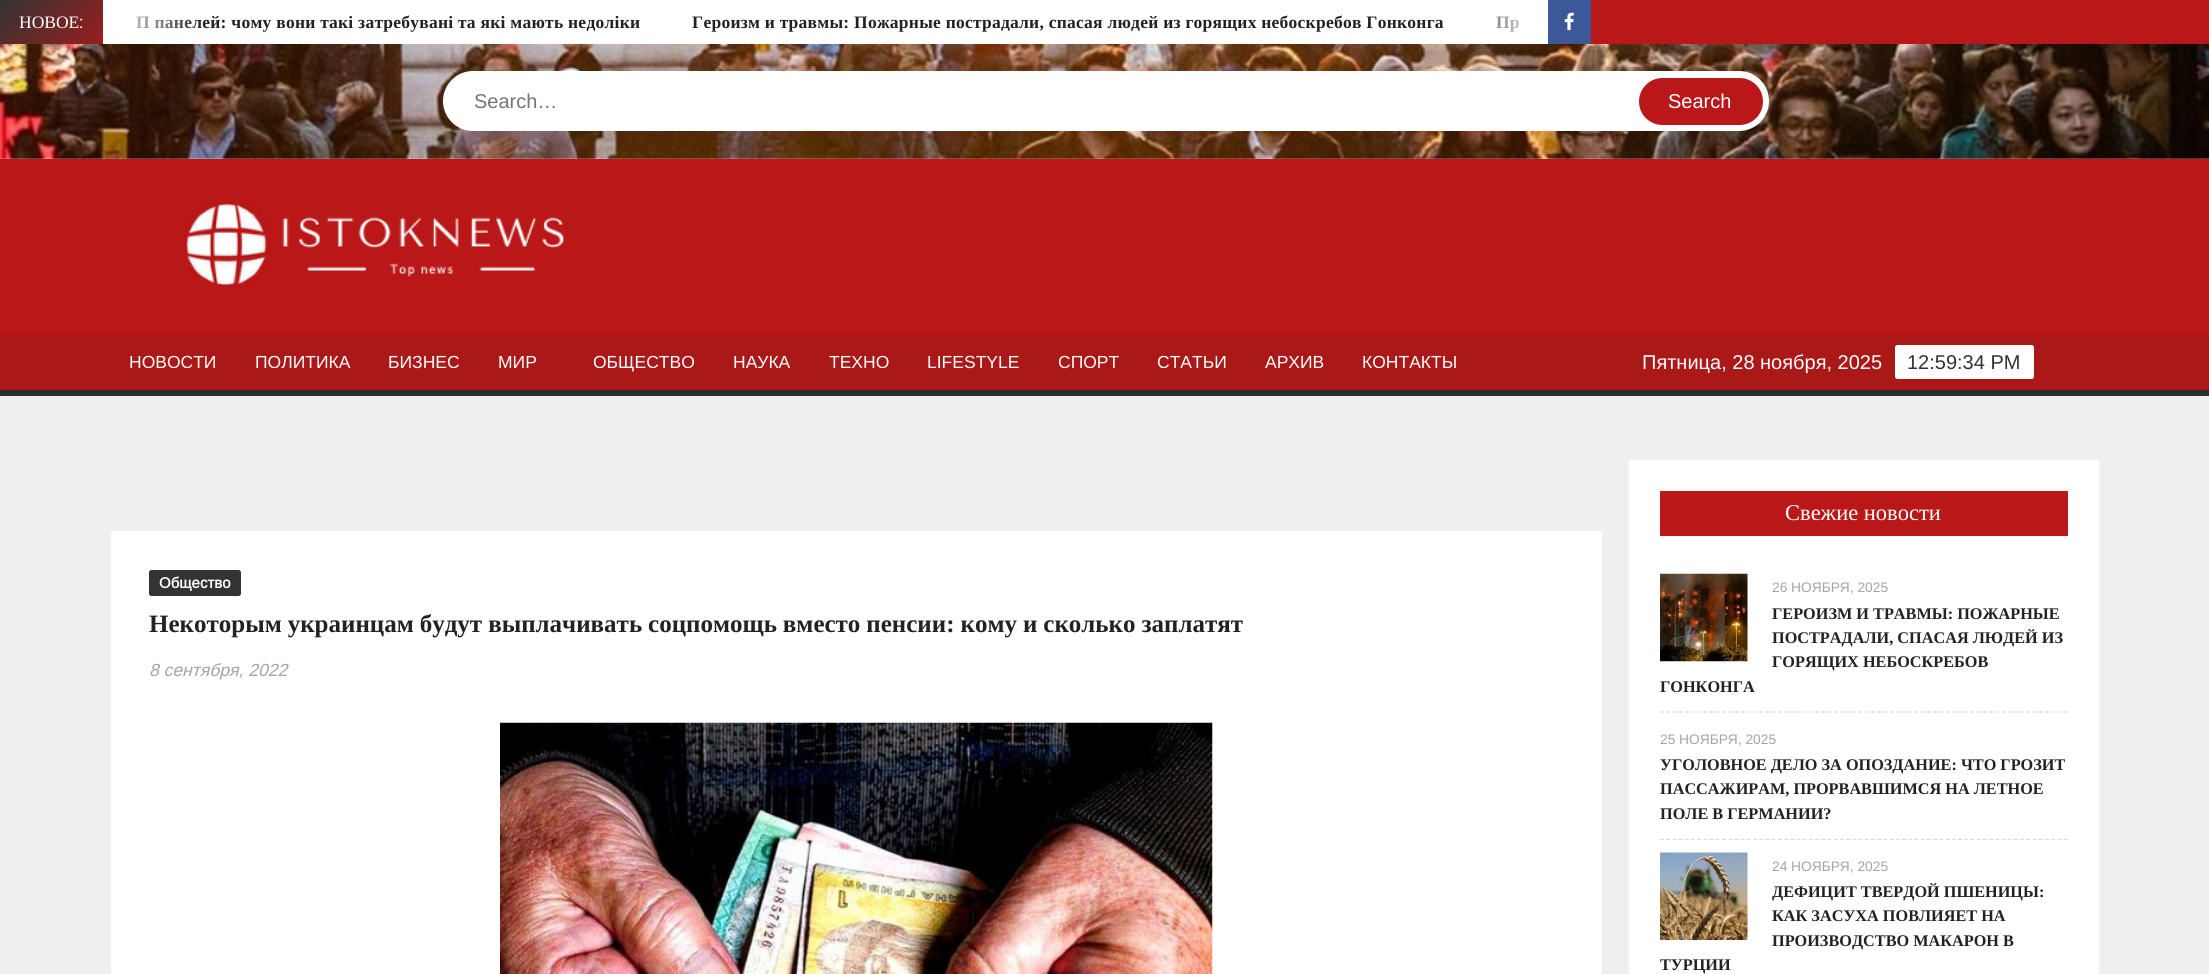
#include <cairo/cairo.h>
#include <math.h>
#include <stddef.h>


static void draw_spaced(cairo_t *cr, double x, double y, const char *s, double letter, double word) {
  cairo_move_to(cr, x, y);
  while (*s) {
    char ch[5] = {0};
    int n = 0;
    do ch[n++] = *s++; while ((*s & 0xC0) == 0x80);
    cairo_show_text(cr, ch);
    cairo_rel_move_to(cr, letter + word * (*ch == ' '), 0);
  }
}

static void rounded_rect(cairo_t *cr, double x, double y, double w, double h, double r) {
  cairo_new_sub_path(cr);
  cairo_arc(cr, x + w - r, y + h - r, r, 0, M_PI / 2);
  cairo_arc(cr, x + r, y + h - r, r, M_PI / 2, M_PI);
  cairo_arc(cr, x + r, y + r, r, M_PI, 1.5 * M_PI);
  cairo_arc(cr, x + w - r, y + r, r, 1.5 * M_PI, 2 * M_PI);
  cairo_close_path(cr);
}

static void draw_image(cairo_t *cr, const char *path, double x, double y, double w, double h) {
  cairo_surface_t *image = cairo_image_surface_create_from_png(path);
  cairo_save(cr);
  cairo_set_source_surface(cr, image, x, y);
  cairo_rectangle(cr, x, y, w, h);
  cairo_fill(cr);
  cairo_restore(cr);
  cairo_surface_destroy(image);
}

static void draw(cairo_t *cr) {
  cairo_pattern_t *gradient;
  cairo_set_source_rgb(cr, 239 / 255.0, 239 / 255.0, 239 / 255.0);
  cairo_paint(cr);
  cairo_set_source_rgb(cr, 1, 1, 1);
  cairo_rectangle(cr, 104, 0, 1443, 44);
  cairo_fill(cr);
  gradient = cairo_pattern_create_linear(351, 234, 59, -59);
  cairo_pattern_add_color_stop_rgba(gradient, 0, 186 / 255.0, 24 / 255.0, 24 / 255.0, 1);
  cairo_pattern_add_color_stop_rgba(gradient, 0.33, 238 / 255.0, 238 / 255.0, 238 / 255.0, 1);
  cairo_pattern_add_color_stop_rgba(gradient, 0.67, 186 / 255.0, 24 / 255.0, 24 / 255.0, 1);
  cairo_pattern_add_color_stop_rgba(gradient, 1, 51 / 255.0, 51 / 255.0, 51 / 255.0, 1);
  cairo_set_source(cr, gradient);
  cairo_pattern_destroy(gradient);
  cairo_rectangle(cr, 0, 0, 103, 44);
  cairo_fill(cr);
  cairo_set_source_rgb(cr, 186 / 255.0, 24 / 255.0, 24 / 255.0);
  cairo_rectangle(cr, 1591, 0, 618, 44);
  cairo_fill(cr);
  cairo_set_source_rgb(cr, 59 / 255.0, 89 / 255.0, 153 / 255.0);
  cairo_rectangle(cr, 1548, 0, 43, 44);
  cairo_fill(cr);
  draw_image(cr, "images/1.png", 1564, 12, 10, 19);
  draw_image(cr, "images/2.png", 0, 44, 2209, 115);
  cairo_set_source_rgb(cr, 1, 1, 1);
  rounded_rect(cr, 443, 71, 1326, 60, 30);
  cairo_fill(cr);
  cairo_save(cr);
  rounded_rect(cr, 449, 78, 1314, 47, 23.5);
  cairo_clip(cr);
  cairo_set_source_rgb(cr, 186 / 255.0, 24 / 255.0, 24 / 255.0);
  rounded_rect(cr, 1639, 78, 125, 47, 23.5);
  cairo_fill(cr);
  cairo_restore(cr);
  cairo_set_source_rgb(cr, 186 / 255.0, 24 / 255.0, 24 / 255.0);
  cairo_rectangle(cr, 0, 159, 2209, 175);
  cairo_fill(cr);
  draw_image(cr, "images/3.png", 184, 203, 381, 84);
  cairo_set_source_rgb(cr, 170 / 255.0, 24 / 255.0, 24 / 255.0);
  cairo_rectangle(cr, 0, 334, 2209, 56);
  cairo_fill(cr);
  cairo_set_source_rgb(cr, 44 / 255.0, 44 / 255.0, 44 / 255.0);
  cairo_rectangle(cr, 0, 390, 2209, 6);
  cairo_fill(cr);
  cairo_set_source_rgb(cr, 1, 1, 1);
  rounded_rect(cr, 1895, 345, 139, 34, 2.5);
  cairo_fill(cr);
  cairo_rectangle(cr, 111, 531, 1491, 443);
  cairo_fill(cr);
  cairo_set_source_rgb(cr, 51 / 255.0, 51 / 255.0, 51 / 255.0);
  rounded_rect(cr, 149, 570, 92, 26, 2.5);
  cairo_fill(cr);
  draw_image(cr, "images/4.png", 500, 722, 713, 252);
  cairo_set_source_rgb(cr, 1, 1, 1);
  cairo_rectangle(cr, 1629, 460, 470, 514);
  cairo_fill(cr);
  cairo_set_source_rgb(cr, 186 / 255.0, 24 / 255.0, 24 / 255.0);
  cairo_rectangle(cr, 1660, 491, 408, 45);
  cairo_fill(cr);
  cairo_new_path(cr);
  cairo_move_to(cr, 1660, 712);
  cairo_line_to(cr, 2067.5, 712);
  cairo_set_source_rgb(cr, 217 / 255.0, 217 / 255.0, 217 / 255.0);
  cairo_set_line_width(cr, 1.2);
  cairo_set_dash(cr, (double[]){3.75, 2.46}, 2, 0);
  cairo_stroke(cr);
  draw_image(cr, "images/5.png", 1660, 573, 88, 89);
  cairo_new_path(cr);
  cairo_move_to(cr, 1660, 839.5);
  cairo_line_to(cr, 2067.5, 839.5);
  cairo_stroke(cr);
  draw_image(cr, "images/6.png", 1660, 852, 88, 88);
  cairo_select_font_face(cr, "Liberation Serif", CAIRO_FONT_SLANT_NORMAL, CAIRO_FONT_WEIGHT_NORMAL);
  cairo_set_font_size(cr, 17.5);
  cairo_set_source_rgb(cr, 1, 1, 1);
  cairo_move_to(cr, 19, 28);
  cairo_show_text(cr, "НОВОЕ");
  cairo_select_font_face(cr, "Heebo", CAIRO_FONT_SLANT_NORMAL, CAIRO_FONT_WEIGHT_NORMAL);
  cairo_move_to(cr, 79, 28);
  cairo_show_text(cr, ":");
  cairo_select_font_face(cr, "Liberation Serif", CAIRO_FONT_SLANT_NORMAL, CAIRO_FONT_WEIGHT_BOLD);
  cairo_set_source_rgb(cr, 34 / 255.0, 34 / 255.0, 34 / 255.0);
  draw_spaced(cr, 136, 28, "П панелей: чому вони такі затребувані та які мають недоліки", 0.25, 0);
  gradient = cairo_pattern_create_linear(103, 22, 203, 22);
  cairo_pattern_add_color_stop_rgba(gradient, 0, 1, 1, 1, 1);
  cairo_pattern_add_color_stop_rgba(gradient, 1, 1, 1, 1, 0);
  cairo_set_source(cr, gradient);
  cairo_pattern_destroy(gradient);
  cairo_rectangle(cr, 103, 0, 98, 44);
  cairo_fill(cr);
  cairo_set_source_rgb(cr, 34 / 255.0, 34 / 255.0, 34 / 255.0);
  draw_spaced(cr, 692, 28, "Героизм и травмы: Пожарные пострадали, спасая людей из горящих небоскребов Гонконга", 0.25, 0);
  draw_spaced(cr, 1496, 28, "Пр", 0.25, 0);
  gradient = cairo_pattern_create_linear(1448, 22, 1548, 22);
  cairo_pattern_add_color_stop_rgba(gradient, 0, 1, 1, 1, 0);
  cairo_pattern_add_color_stop_rgba(gradient, 1, 1, 1, 1, 1);
  cairo_set_source(cr, gradient);
  cairo_pattern_destroy(gradient);
  cairo_rectangle(cr, 1496, 0, 52, 44);
  cairo_fill(cr);
  cairo_select_font_face(cr, "Arimo", CAIRO_FONT_SLANT_NORMAL, CAIRO_FONT_WEIGHT_NORMAL);
  cairo_set_font_size(cr, 20);
  cairo_set_source_rgb(cr, 117 / 255.0, 117 / 255.0, 117 / 255.0);
  cairo_move_to(cr, 474, 108);
  cairo_show_text(cr, "Search…");
  cairo_set_source_rgb(cr, 1, 1, 1);
  cairo_move_to(cr, 1668, 108);
  cairo_show_text(cr, "Search");
  cairo_set_font_size(cr, 17.5);
  cairo_move_to(cr, 129, 368);
  cairo_show_text(cr, "НОВОСТИ");
  cairo_move_to(cr, 255, 368);
  cairo_show_text(cr, "ПОЛИТИКА");
  cairo_move_to(cr, 388, 368);
  cairo_show_text(cr, "БИЗНЕС");
  cairo_move_to(cr, 498, 368);
  cairo_show_text(cr, "МИР");
  cairo_move_to(cr, 593, 368);
  cairo_show_text(cr, "ОБЩЕСТВО");
  cairo_move_to(cr, 733, 368);
  cairo_show_text(cr, "НАУКА");
  cairo_move_to(cr, 829, 368);
  cairo_show_text(cr, "ТЕХНО");
  cairo_move_to(cr, 927, 368);
  cairo_show_text(cr, "LIFESTYLE");
  cairo_move_to(cr, 1058, 368);
  cairo_show_text(cr, "СПОРТ");
  cairo_move_to(cr, 1157, 368);
  cairo_show_text(cr, "СТАТЬИ");
  cairo_move_to(cr, 1265, 368);
  cairo_show_text(cr, "АРХИВ");
  cairo_move_to(cr, 1362, 368);
  cairo_show_text(cr, "КОНТАКТЫ");
  cairo_set_font_size(cr, 20);
  cairo_move_to(cr, 1642, 369);
  cairo_show_text(cr, "Пятница, 28 ноября, 2025");
  cairo_set_source_rgb(cr, 51 / 255.0, 51 / 255.0, 51 / 255.0);
  cairo_move_to(cr, 1907, 369);
  cairo_show_text(cr, "12:59:34 PM");
  cairo_select_font_face(cr, "Arimo", CAIRO_FONT_SLANT_NORMAL, CAIRO_FONT_WEIGHT_BOLD);
  cairo_set_font_size(cr, 15);
  cairo_set_source_rgb(cr, 1, 1, 1);
  cairo_move_to(cr, 159, 588);
  cairo_show_text(cr, "Общество");
  cairo_select_font_face(cr, "Liberation Serif", CAIRO_FONT_SLANT_NORMAL, CAIRO_FONT_WEIGHT_BOLD);
  cairo_set_font_size(cr, 25);
  cairo_set_source_rgb(cr, 34 / 255.0, 34 / 255.0, 34 / 255.0);
  draw_spaced(cr, 149, 632, "Некоторым украинцам будут выплачивать соцпомощь вместо пенсии: кому и сколько заплатят", 0, -0.25);
  cairo_select_font_face(cr, "Arimo", CAIRO_FONT_SLANT_ITALIC, CAIRO_FONT_WEIGHT_NORMAL);
  cairo_set_font_size(cr, 17.5);
  cairo_set_source_rgb(cr, 164 / 255.0, 164 / 255.0, 164 / 255.0);
  cairo_move_to(cr, 149, 676);
  cairo_show_text(cr, "8 сентября, 2022");
  cairo_select_font_face(cr, "Liberation Serif", CAIRO_FONT_SLANT_NORMAL, CAIRO_FONT_WEIGHT_NORMAL);
  cairo_set_font_size(cr, 22.5);
  cairo_set_source_rgb(cr, 1, 1, 1);
  cairo_move_to(cr, 1785, 520);
  cairo_show_text(cr, "Свежие новости");
  cairo_select_font_face(cr, "Arimo", CAIRO_FONT_SLANT_NORMAL, CAIRO_FONT_WEIGHT_NORMAL);
  cairo_set_font_size(cr, 13.75);
  cairo_set_source_rgb(cr, 164 / 255.0, 164 / 255.0, 164 / 255.0);
  cairo_move_to(cr, 1772, 592);
  cairo_show_text(cr, "26 НОЯБРЯ, 2025");
  cairo_select_font_face(cr, "Liberation Serif", CAIRO_FONT_SLANT_NORMAL, CAIRO_FONT_WEIGHT_BOLD);
  cairo_set_font_size(cr, 16.25);
  cairo_set_source_rgb(cr, 34 / 255.0, 34 / 255.0, 34 / 255.0);
  cairo_move_to(cr, 1772, 619);
  cairo_show_text(cr, "ГЕРОИЗМ И ТРАВМЫ: ПОЖАРНЫЕ");
  cairo_move_to(cr, 1772, 643);
  cairo_show_text(cr, "ПОСТРАДАЛИ, СПАСАЯ ЛЮДЕЙ ИЗ");
  cairo_move_to(cr, 1772, 667);
  cairo_show_text(cr, "ГОРЯЩИХ НЕБОСКРЕБОВ");
  cairo_move_to(cr, 1660, 692);
  cairo_show_text(cr, "ГОНКОНГА");
  cairo_select_font_face(cr, "Arimo", CAIRO_FONT_SLANT_NORMAL, CAIRO_FONT_WEIGHT_NORMAL);
  cairo_set_font_size(cr, 13.75);
  cairo_set_source_rgb(cr, 164 / 255.0, 164 / 255.0, 164 / 255.0);
  cairo_move_to(cr, 1660, 744);
  cairo_show_text(cr, "25 НОЯБРЯ, 2025");
  cairo_select_font_face(cr, "Liberation Serif", CAIRO_FONT_SLANT_NORMAL, CAIRO_FONT_WEIGHT_BOLD);
  cairo_set_font_size(cr, 16.25);
  cairo_set_source_rgb(cr, 34 / 255.0, 34 / 255.0, 34 / 255.0);
  cairo_move_to(cr, 1660, 770);
  cairo_show_text(cr, "УГОЛОВНОЕ ДЕЛО ЗА ОПОЗДАНИЕ: ЧТО ГРОЗИТ");
  cairo_move_to(cr, 1660, 794);
  cairo_show_text(cr, "ПАССАЖИРАМ, ПРОРВАВШИМСЯ НА ЛЕТНОЕ");
  cairo_move_to(cr, 1660, 819);
  cairo_show_text(cr, "ПОЛЕ В ГЕРМАНИИ?");
  cairo_select_font_face(cr, "Arimo", CAIRO_FONT_SLANT_NORMAL, CAIRO_FONT_WEIGHT_NORMAL);
  cairo_set_font_size(cr, 13.75);
  cairo_set_source_rgb(cr, 164 / 255.0, 164 / 255.0, 164 / 255.0);
  cairo_move_to(cr, 1772, 871);
  cairo_show_text(cr, "24 НОЯБРЯ, 2025");
  cairo_select_font_face(cr, "Liberation Serif", CAIRO_FONT_SLANT_NORMAL, CAIRO_FONT_WEIGHT_BOLD);
  cairo_set_font_size(cr, 16.25);
  cairo_set_source_rgb(cr, 34 / 255.0, 34 / 255.0, 34 / 255.0);
  cairo_move_to(cr, 1772, 897);
  cairo_show_text(cr, "ДЕФИЦИТ ТВЕРДОЙ ПШЕНИЦЫ:");
  cairo_move_to(cr, 1772, 921);
  cairo_show_text(cr, "КАК ЗАСУХА ПОВЛИЯЕТ НА");
  cairo_move_to(cr, 1772, 946);
  cairo_show_text(cr, "ПРОИЗВОДСТВО МАКАРОН В");
  cairo_move_to(cr, 1660, 970);
  cairo_show_text(cr, "ТУРЦИИ");
}

int main(void) {
  cairo_surface_t *surface = cairo_image_surface_create(CAIRO_FORMAT_RGB24, 2209, 974);
  cairo_t *cr = cairo_create(surface);
  cairo_font_options_t *options = cairo_font_options_create();
  cairo_font_options_set_hint_metrics(options, CAIRO_HINT_METRICS_OFF);
  cairo_font_options_set_hint_style(options, CAIRO_HINT_STYLE_NONE);
  cairo_set_font_options(cr, options);
  cairo_set_miter_limit(cr, 4);
  draw(cr);
  cairo_surface_write_to_png(surface, "out.png");
  cairo_font_options_destroy(options);
  cairo_destroy(cr);
  cairo_surface_destroy(surface);
  return 0;
}
